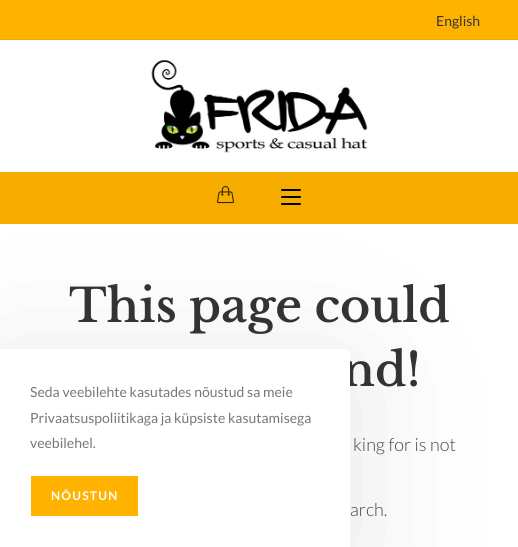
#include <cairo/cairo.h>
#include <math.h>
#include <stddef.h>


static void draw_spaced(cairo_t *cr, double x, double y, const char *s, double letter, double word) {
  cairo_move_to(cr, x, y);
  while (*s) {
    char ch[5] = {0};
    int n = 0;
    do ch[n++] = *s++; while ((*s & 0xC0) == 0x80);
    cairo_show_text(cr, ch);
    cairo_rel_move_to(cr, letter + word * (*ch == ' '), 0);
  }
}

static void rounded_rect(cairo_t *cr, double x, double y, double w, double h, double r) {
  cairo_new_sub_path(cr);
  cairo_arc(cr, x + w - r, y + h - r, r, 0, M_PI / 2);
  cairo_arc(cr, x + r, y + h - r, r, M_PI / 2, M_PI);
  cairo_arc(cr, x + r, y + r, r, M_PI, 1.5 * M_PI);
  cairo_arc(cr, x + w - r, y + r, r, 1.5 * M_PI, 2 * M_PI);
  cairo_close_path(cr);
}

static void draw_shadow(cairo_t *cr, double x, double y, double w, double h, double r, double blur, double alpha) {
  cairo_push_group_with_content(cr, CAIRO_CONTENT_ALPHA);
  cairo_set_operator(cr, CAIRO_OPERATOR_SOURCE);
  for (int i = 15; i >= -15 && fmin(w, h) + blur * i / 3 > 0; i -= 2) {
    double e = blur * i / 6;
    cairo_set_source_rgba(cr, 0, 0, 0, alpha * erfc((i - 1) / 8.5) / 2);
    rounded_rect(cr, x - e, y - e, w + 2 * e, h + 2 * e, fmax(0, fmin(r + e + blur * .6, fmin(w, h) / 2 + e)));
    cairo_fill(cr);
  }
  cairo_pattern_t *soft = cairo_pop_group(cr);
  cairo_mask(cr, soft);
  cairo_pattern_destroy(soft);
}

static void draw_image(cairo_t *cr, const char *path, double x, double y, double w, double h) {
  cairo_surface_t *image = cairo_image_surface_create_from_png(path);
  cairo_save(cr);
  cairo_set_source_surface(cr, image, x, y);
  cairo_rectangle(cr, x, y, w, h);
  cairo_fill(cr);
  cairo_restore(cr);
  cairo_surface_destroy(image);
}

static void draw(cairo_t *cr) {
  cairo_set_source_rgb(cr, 1, 1, 1);
  cairo_paint(cr);
  cairo_set_source_rgb(cr, 1, 178 / 255.0, 0);
  cairo_rectangle(cr, 0, 0, 518, 39);
  cairo_fill(cr);
  cairo_set_source_rgb(cr, 239 / 255.0, 168 / 255.0, 5 / 255.0);
  cairo_rectangle(cr, 0, 39, 518, 1);
  cairo_fill(cr);
  draw_image(cr, "images/1.png", 151, 60, 217, 93);
  cairo_set_source_rgb(cr, 247 / 255.0, 172 / 255.0, 0);
  cairo_rectangle(cr, 0, 172, 518, 52);
  cairo_fill(cr);
  draw_image(cr, "images/2.png", 217, 186, 17, 18);
  cairo_set_source_rgb(cr, 0, 0, 0);
  rounded_rect(cr, 281, 189, 20, 2, 1);
  cairo_fill(cr);
  rounded_rect(cr, 281, 196, 20, 2, 1);
  cairo_fill(cr);
  rounded_rect(cr, 281, 203, 20, 2, 1);
  cairo_fill(cr);
  cairo_set_source_rgb(cr, 0, 0, 0);
  draw_shadow(cr, 0, 369, 350, 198, 4, 75, 0.1);
  cairo_select_font_face(cr, "Lato", CAIRO_FONT_SLANT_NORMAL, CAIRO_FONT_WEIGHT_NORMAL);
  cairo_set_font_size(cr, 14);
  cairo_set_source_rgb(cr, 51 / 255.0, 51 / 255.0, 51 / 255.0);
  cairo_move_to(cr, 436, 26);
  cairo_show_text(cr, "English");
  cairo_select_font_face(cr, "Libre Baskerville SemiBold", CAIRO_FONT_SLANT_NORMAL, CAIRO_FONT_WEIGHT_NORMAL);
  cairo_set_font_size(cr, 46);
  cairo_move_to(cr, 69, 322);
  cairo_show_text(cr, "This page could");
  cairo_move_to(cr, 342, 386);
  cairo_show_text(cr, "nd!");
  cairo_select_font_face(cr, "Lato Light", CAIRO_FONT_SLANT_NORMAL, CAIRO_FONT_WEIGHT_NORMAL);
  cairo_set_font_size(cr, 18);
  cairo_set_source_rgb(cr, 68 / 255.0, 68 / 255.0, 68 / 255.0);
  cairo_move_to(cr, 353, 451);
  cairo_show_text(cr, "king for is not");
  cairo_move_to(cr, 350, 516);
  cairo_show_text(cr, "arch.");
  cairo_set_source_rgb(cr, 1, 1, 1);
  cairo_new_path(cr);
  cairo_move_to(cr, 0, 349);
  cairo_line_to(cr, 346, 349);
  cairo_curve_to(cr, 348, 349, 350, 351, 350, 353);
  cairo_line_to(cr, 350, 547);
  cairo_line_to(cr, 0, 547);
  cairo_close_path(cr);
  cairo_fill(cr);
  cairo_select_font_face(cr, "Lato", CAIRO_FONT_SLANT_NORMAL, CAIRO_FONT_WEIGHT_NORMAL);
  cairo_set_font_size(cr, 14);
  cairo_set_source_rgb(cr, 119 / 255.0, 119 / 255.0, 119 / 255.0);
  cairo_move_to(cr, 30, 397);
  cairo_show_text(cr, "Seda veebilehte kasutades nõustud sa meie");
  cairo_move_to(cr, 30, 423);
  cairo_show_text(cr, "Privaatsuspoliitikaga ja küpsiste kasutamisega");
  cairo_move_to(cr, 30, 448);
  cairo_show_text(cr, "veebilehel.");
  cairo_set_source_rgb(cr, 1, 178 / 255.0, 0);
  cairo_rectangle(cr, 31, 476, 107, 40);
  cairo_fill(cr);
  cairo_select_font_face(cr, "Lato", CAIRO_FONT_SLANT_NORMAL, CAIRO_FONT_WEIGHT_BOLD);
  cairo_set_font_size(cr, 12);
  cairo_set_source_rgb(cr, 1, 1, 1);
  draw_spaced(cr, 51, 500, "NÕUSTUN", 1.25, 0);
}

int main(void) {
  cairo_surface_t *surface = cairo_image_surface_create(CAIRO_FORMAT_RGB24, 518, 547);
  cairo_t *cr = cairo_create(surface);
  cairo_font_options_t *options = cairo_font_options_create();
  cairo_font_options_set_hint_metrics(options, CAIRO_HINT_METRICS_OFF);
  cairo_font_options_set_hint_style(options, CAIRO_HINT_STYLE_NONE);
  cairo_set_font_options(cr, options);
  cairo_set_miter_limit(cr, 4);
  draw(cr);
  cairo_surface_write_to_png(surface, "out.png");
  cairo_font_options_destroy(options);
  cairo_destroy(cr);
  cairo_surface_destroy(surface);
  return 0;
}
